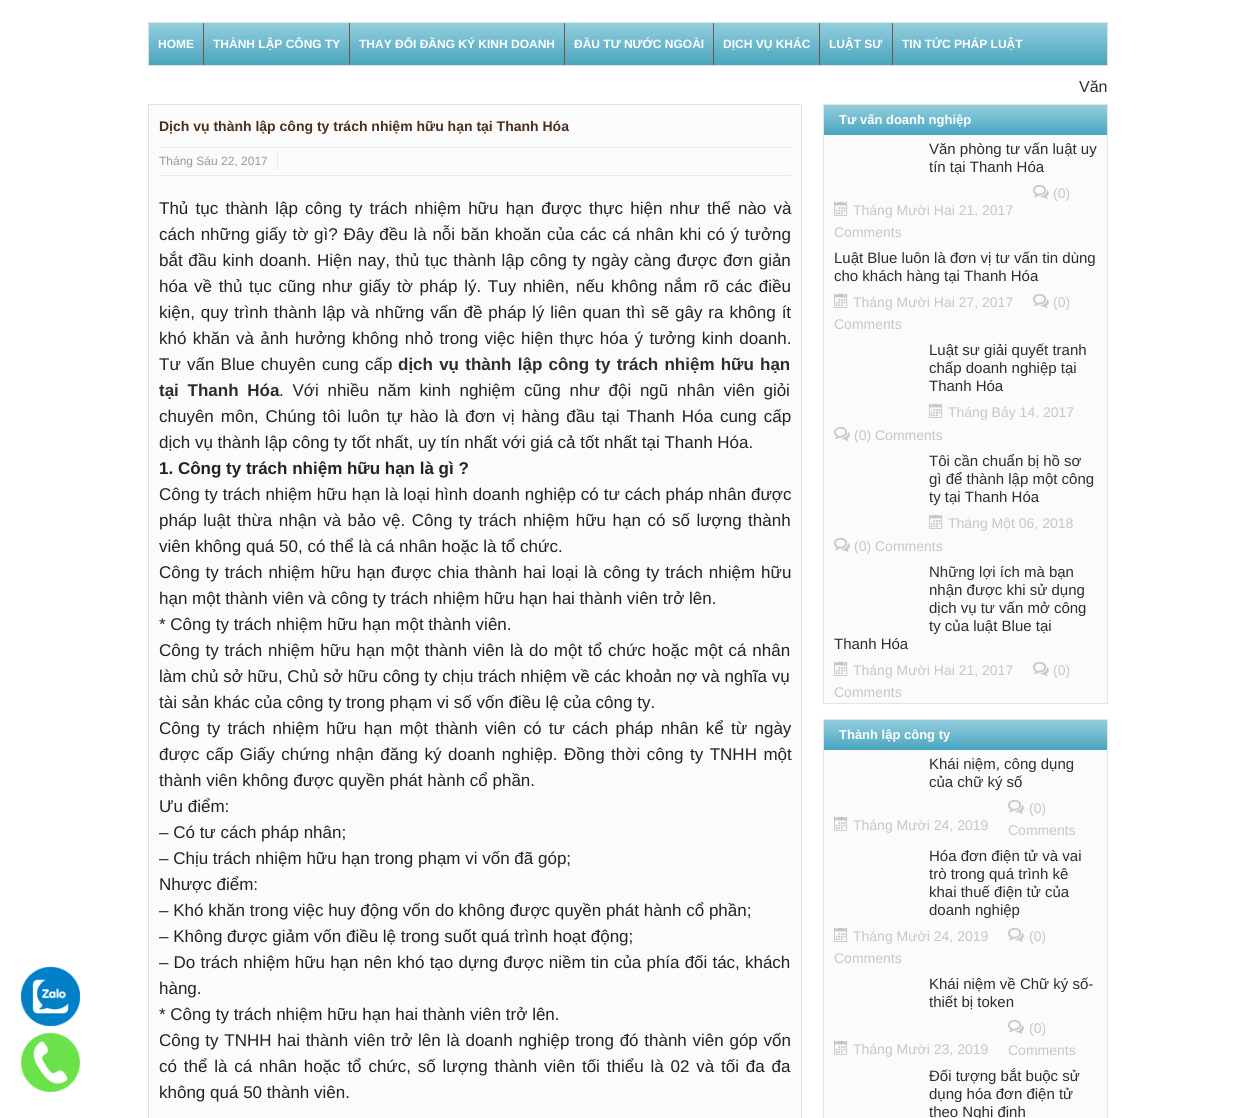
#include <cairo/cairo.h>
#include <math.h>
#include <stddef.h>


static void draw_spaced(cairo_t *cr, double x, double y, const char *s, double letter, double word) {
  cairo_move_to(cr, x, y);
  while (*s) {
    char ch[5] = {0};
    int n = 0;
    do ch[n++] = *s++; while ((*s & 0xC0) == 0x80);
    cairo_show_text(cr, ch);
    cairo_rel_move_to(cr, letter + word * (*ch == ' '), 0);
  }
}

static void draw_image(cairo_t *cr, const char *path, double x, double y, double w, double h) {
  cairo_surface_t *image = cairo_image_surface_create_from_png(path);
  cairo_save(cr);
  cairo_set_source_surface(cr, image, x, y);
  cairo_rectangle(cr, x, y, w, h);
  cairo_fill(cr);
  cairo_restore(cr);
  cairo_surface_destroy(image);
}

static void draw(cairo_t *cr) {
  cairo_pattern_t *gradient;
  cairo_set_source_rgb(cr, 1, 1, 1);
  cairo_paint(cr);
  draw_image(cr, "images/1.png", 20, 966, 60, 60);
  draw_image(cr, "images/2.png", 20, 1032, 60, 60);
  gradient = cairo_pattern_create_linear(628, 23, 628, 65);
  cairo_pattern_add_color_stop_rgba(gradient, 0, 147 / 255.0, 206 / 255.0, 222 / 255.0, 1);
  cairo_pattern_add_color_stop_rgba(gradient, 0.41, 117 / 255.0, 189 / 255.0, 209 / 255.0, 1);
  cairo_pattern_add_color_stop_rgba(gradient, 1, 73 / 255.0, 165 / 255.0, 191 / 255.0, 1);
  cairo_set_source(cr, gradient);
  cairo_pattern_destroy(gradient);
  cairo_rectangle(cr, 149, 23, 958, 42);
  cairo_fill(cr);
  cairo_rectangle(cr, 148.5, 22.5, 959, 43);
  cairo_set_source_rgb(cr, 225 / 255.0, 225 / 255.0, 225 / 255.0);
  cairo_set_line_width(cr, 1);
  cairo_stroke(cr);
  cairo_set_source_rgb(cr, 123 / 255.0, 85 / 255.0, 62 / 255.0);
  cairo_rectangle(cr, 203, 23, 1, 42);
  cairo_fill(cr);
  cairo_rectangle(cr, 349, 23, 1, 42);
  cairo_fill(cr);
  cairo_rectangle(cr, 564, 23, 1, 42);
  cairo_fill(cr);
  cairo_rectangle(cr, 713, 23, 1, 42);
  cairo_fill(cr);
  cairo_rectangle(cr, 819, 23, 1, 42);
  cairo_fill(cr);
  cairo_rectangle(cr, 892, 23, 1, 42);
  cairo_fill(cr);
  cairo_set_source_rgb(cr, 251 / 255.0, 251 / 255.0, 251 / 255.0);
  cairo_rectangle(cr, 148.5, 104.5, 653, 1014);
  cairo_fill_preserve(cr);
  cairo_set_source_rgb(cr, 225 / 255.0, 225 / 255.0, 225 / 255.0);
  cairo_stroke(cr);
  cairo_set_source_rgb(cr, 233 / 255.0, 233 / 255.0, 233 / 255.0);
  cairo_rectangle(cr, 159, 147, 632, 1);
  cairo_fill(cr);
  cairo_rectangle(cr, 159, 175, 632, 1);
  cairo_fill(cr);
  cairo_rectangle(cr, 277, 153, 1, 17);
  cairo_fill(cr);
  cairo_set_source_rgb(cr, 251 / 255.0, 251 / 255.0, 251 / 255.0);
  cairo_rectangle(cr, 824, 135, 283, 568);
  cairo_fill(cr);
  cairo_rectangle(cr, 823.5, 104.5, 284, 599);
  cairo_set_source_rgb(cr, 228 / 255.0, 228 / 255.0, 228 / 255.0);
  cairo_stroke(cr);
  gradient = cairo_pattern_create_linear(966, 105, 966, 135);
  cairo_pattern_add_color_stop_rgba(gradient, 0, 147 / 255.0, 206 / 255.0, 222 / 255.0, 1);
  cairo_pattern_add_color_stop_rgba(gradient, 0.41, 117 / 255.0, 189 / 255.0, 209 / 255.0, 1);
  cairo_pattern_add_color_stop_rgba(gradient, 1, 73 / 255.0, 165 / 255.0, 191 / 255.0, 1);
  cairo_set_source(cr, gradient);
  cairo_pattern_destroy(gradient);
  cairo_rectangle(cr, 824, 105, 283, 30);
  cairo_fill(cr);
  draw_image(cr, "images/3.png", 1033, 184, 16, 15);
  draw_image(cr, "images/4.png", 834, 201, 14, 15);
  draw_image(cr, "images/3.png", 1033, 293, 16, 15);
  draw_image(cr, "images/4.png", 834, 293, 14, 15);
  draw_image(cr, "images/4.png", 929, 403, 14, 15);
  draw_image(cr, "images/3.png", 834, 426, 16, 15);
  draw_image(cr, "images/4.png", 929, 514, 14, 15);
  draw_image(cr, "images/3.png", 834, 537, 16, 15);
  draw_image(cr, "images/3.png", 1033, 661, 16, 15);
  draw_image(cr, "images/4.png", 834, 661, 14, 15);
  cairo_set_source_rgb(cr, 251 / 255.0, 251 / 255.0, 251 / 255.0);
  cairo_rectangle(cr, 824, 750, 283, 368);
  cairo_fill(cr);
  cairo_rectangle(cr, 823.5, 719.5, 284, 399);
  cairo_set_source_rgb(cr, 228 / 255.0, 228 / 255.0, 228 / 255.0);
  cairo_stroke(cr);
  gradient = cairo_pattern_create_linear(966, 720, 966, 750);
  cairo_pattern_add_color_stop_rgba(gradient, 0, 147 / 255.0, 206 / 255.0, 222 / 255.0, 1);
  cairo_pattern_add_color_stop_rgba(gradient, 0.41, 117 / 255.0, 189 / 255.0, 209 / 255.0, 1);
  cairo_pattern_add_color_stop_rgba(gradient, 1, 73 / 255.0, 165 / 255.0, 191 / 255.0, 1);
  cairo_set_source(cr, gradient);
  cairo_pattern_destroy(gradient);
  cairo_rectangle(cr, 824, 720, 283, 30);
  cairo_fill(cr);
  draw_image(cr, "images/4.png", 834, 816, 14, 15);
  draw_image(cr, "images/3.png", 1008, 799, 16, 15);
  draw_image(cr, "images/3.png", 1008, 927, 16, 15);
  draw_image(cr, "images/4.png", 834, 927, 14, 15);
  draw_image(cr, "images/4.png", 834, 1040, 14, 15);
  draw_image(cr, "images/3.png", 1008, 1019, 16, 15);
  cairo_select_font_face(cr, "Liberation Sans", CAIRO_FONT_SLANT_NORMAL, CAIRO_FONT_WEIGHT_BOLD);
  cairo_set_font_size(cr, 12);
  cairo_set_source_rgb(cr, 1, 1, 1);
  cairo_move_to(cr, 158, 48);
  cairo_show_text(cr, "HOME");
  cairo_move_to(cr, 213, 48);
  cairo_show_text(cr, "THÀNH LẬP CÔNG TY");
  cairo_move_to(cr, 359, 48);
  cairo_show_text(cr, "THAY ĐỔI ĐĂNG KÝ KINH DOANH");
  cairo_move_to(cr, 574, 48);
  cairo_show_text(cr, "ĐẦU TƯ NƯỚC NGOÀI");
  cairo_move_to(cr, 723, 48);
  cairo_show_text(cr, "DỊCH VỤ KHÁC");
  cairo_move_to(cr, 829, 48);
  cairo_show_text(cr, "LUẬT SƯ");
  cairo_move_to(cr, 902, 48);
  cairo_show_text(cr, "TIN TỨC PHÁP LUẬT");
  cairo_select_font_face(cr, "Liberation Sans", CAIRO_FONT_SLANT_NORMAL, CAIRO_FONT_WEIGHT_NORMAL);
  cairo_set_font_size(cr, 16);
  cairo_set_source_rgb(cr, 45 / 255.0, 45 / 255.0, 45 / 255.0);
  cairo_move_to(cr, 1079, 92);
  cairo_show_text(cr, "Văn");
  cairo_select_font_face(cr, "Liberation Sans", CAIRO_FONT_SLANT_NORMAL, CAIRO_FONT_WEIGHT_BOLD);
  cairo_set_font_size(cr, 14);
  cairo_set_source_rgb(cr, 75 / 255.0, 46 / 255.0, 28 / 255.0);
  cairo_move_to(cr, 159, 131);
  cairo_show_text(cr, "Dịch vụ thành lập công ty trách nhiệm hữu hạn tại Thanh Hóa");
  cairo_select_font_face(cr, "Liberation Sans", CAIRO_FONT_SLANT_NORMAL, CAIRO_FONT_WEIGHT_NORMAL);
  cairo_set_font_size(cr, 12);
  cairo_set_source_rgb(cr, 153 / 255.0, 153 / 255.0, 153 / 255.0);
  cairo_move_to(cr, 159, 165);
  cairo_show_text(cr, "Tháng Sáu 22, 2017");
  cairo_set_font_size(cr, 17);
  cairo_set_source_rgb(cr, 34 / 255.0, 34 / 255.0, 34 / 255.0);
  draw_spaced(cr, 159, 214, "Thủ tục thành lập công ty trách nhiệm hữu hạn được thực hiện như thế nào và", 0, 2.5);
  draw_spaced(cr, 159, 240, "cách những giấy tờ gì? Đây đều là nỗi băn khoăn của các cá nhân khi có ý tưởng", 0, 1);
  draw_spaced(cr, 159, 266, "bắt đầu kinh doanh. Hiện nay, thủ tục thành lập công ty ngày càng được đơn giản", 0, 1);
  draw_spaced(cr, 159, 292, "hóa về thủ tục cũng như giấy tờ pháp lý. Tuy nhiên, nếu không nắm rõ các điều", 0, 2);
  draw_spaced(cr, 159, 318, "kiện, quy trình thành lập và những vấn đề pháp lý liên quan thì sẽ gây ra không ít", 0, 1.2);
  draw_spaced(cr, 159, 344, "khó khăn và ảnh hưởng không nhỏ trong việc hiện thực hóa ý tưởng kinh doanh.", 0, 1.6);
  draw_spaced(cr, 159, 370, "Tư vấn Blue chuyên cung cấp", 0, 1.5);
  cairo_select_font_face(cr, "Liberation Sans", CAIRO_FONT_SLANT_NORMAL, CAIRO_FONT_WEIGHT_BOLD);
  cairo_set_source_rgb(cr, 45 / 255.0, 45 / 255.0, 45 / 255.0);
  draw_spaced(cr, 398, 370, "dịch vụ thành lập công ty trách nhiệm hữu hạn", 0, 1.5);
  draw_spaced(cr, 159, 396, "tại Thanh Hóa", 0, 4);
  cairo_select_font_face(cr, "Liberation Sans", CAIRO_FONT_SLANT_NORMAL, CAIRO_FONT_WEIGHT_NORMAL);
  cairo_set_source_rgb(cr, 34 / 255.0, 34 / 255.0, 34 / 255.0);
  draw_spaced(cr, 279, 396, ". Với nhiều năm kinh nghiệm cũng như đội ngũ nhân viên giỏi", 0, 4);
  draw_spaced(cr, 159, 422, "chuyên môn, Chúng tôi luôn tự hào là đơn vị hàng đầu tại Thanh Hóa cung cấp", 0, 2.25);
  cairo_move_to(cr, 159, 448);
  cairo_show_text(cr, "dịch vụ thành lập công ty tốt nhất, uy tín nhất với giá cả tốt nhất tại Thanh Hóa.");
  cairo_select_font_face(cr, "Liberation Sans", CAIRO_FONT_SLANT_NORMAL, CAIRO_FONT_WEIGHT_BOLD);
  cairo_move_to(cr, 159, 474);
  cairo_show_text(cr, "1. Công ty trách nhiệm hữu hạn là gì ?");
  cairo_select_font_face(cr, "Liberation Sans", CAIRO_FONT_SLANT_NORMAL, CAIRO_FONT_WEIGHT_NORMAL);
  draw_spaced(cr, 159, 500, "Công ty trách nhiệm hữu hạn là loại hình doanh nghiệp có tư cách pháp nhân được", 0, 0.2);
  draw_spaced(cr, 159, 526, "pháp luật thừa nhận và bảo vệ. Công ty trách nhiệm hữu hạn có số lượng thành", 0, 1.8);
  cairo_move_to(cr, 159, 552);
  cairo_show_text(cr, "viên không quá 50, có thể là cá nhân hoặc là tổ chức.");
  draw_spaced(cr, 159, 578, "Công ty trách nhiệm hữu hạn được chia thành hai loại là công ty trách nhiệm hữu", 0, 1.2);
  cairo_move_to(cr, 159, 604);
  cairo_show_text(cr, "hạn một thành viên và công ty trách nhiệm hữu hạn hai thành viên trở lên.");
  cairo_move_to(cr, 159, 630);
  cairo_show_text(cr, "* Công ty trách nhiệm hữu hạn một thành viên.");
  draw_spaced(cr, 159, 656, "Công ty trách nhiệm hữu hạn một thành viên là do một tổ chức hoặc một cá nhân", 0, 1.1);
  cairo_move_to(cr, 159, 682);
  cairo_show_text(cr, "làm chủ sở hữu, Chủ sở hữu công ty chịu trách nhiệm về các khoản nợ và nghĩa vụ");
  cairo_move_to(cr, 159, 708);
  cairo_show_text(cr, "tài sản khác của công ty trong phạm vi số vốn điều lệ của công ty.");
  draw_spaced(cr, 159, 734, "Công ty trách nhiệm hữu hạn một thành viên có tư cách pháp nhân kể từ ngày", 0, 2.6);
  draw_spaced(cr, 159, 760, "được cấp Giấy chứng nhận đăng ký doanh nghiệp. Đồng thời công ty TNHH một", 0, 1.75);
  cairo_move_to(cr, 159, 786);
  cairo_show_text(cr, "thành viên không được quyền phát hành cổ phần.");
  cairo_move_to(cr, 159, 812);
  cairo_show_text(cr, "Ưu điểm:");
  cairo_move_to(cr, 159, 838);
  cairo_show_text(cr, "– Có tư cách pháp nhân;");
  cairo_move_to(cr, 159, 864);
  cairo_show_text(cr, "– Chịu trách nhiệm hữu hạn trong phạm vi vốn đã góp;");
  cairo_move_to(cr, 159, 890);
  cairo_show_text(cr, "Nhược điểm:");
  cairo_move_to(cr, 159, 916);
  cairo_show_text(cr, "– Khó khăn trong việc huy động vốn do không được quyền phát hành cổ phần;");
  cairo_move_to(cr, 159, 942);
  cairo_show_text(cr, "– Không được giảm vốn điều lệ trong suốt quá trình hoạt động;");
  draw_spaced(cr, 159, 968, "– Do trách nhiệm hữu hạn nên khó tạo dựng được niềm tin của phía đối tác, khách", 0, 0.4);
  cairo_move_to(cr, 159, 994);
  cairo_show_text(cr, "hàng.");
  cairo_move_to(cr, 159, 1020);
  cairo_show_text(cr, "* Công ty trách nhiệm hữu hạn hai thành viên trở lên.");
  draw_spaced(cr, 159, 1046, "Công ty TNHH hai thành viên trở lên là doanh nghiệp trong đó thành viên góp vốn", 0, 1);
  draw_spaced(cr, 159, 1072, "có thể là cá nhân hoặc tổ chức, số lượng thành viên tối thiểu là 02 và tối đa đa", 0, 2.1);
  cairo_move_to(cr, 159, 1098);
  cairo_show_text(cr, "không quá 50 thành viên.");
  cairo_select_font_face(cr, "Liberation Sans", CAIRO_FONT_SLANT_NORMAL, CAIRO_FONT_WEIGHT_BOLD);
  cairo_set_font_size(cr, 13);
  cairo_set_source_rgb(cr, 1, 1, 1);
  cairo_move_to(cr, 839, 124);
  cairo_show_text(cr, "Tư vấn doanh nghiệp");
  cairo_select_font_face(cr, "Liberation Sans", CAIRO_FONT_SLANT_NORMAL, CAIRO_FONT_WEIGHT_NORMAL);
  cairo_set_font_size(cr, 15);
  cairo_set_source_rgb(cr, 45 / 255.0, 45 / 255.0, 45 / 255.0);
  cairo_move_to(cr, 929, 154);
  cairo_show_text(cr, "Văn phòng tư vấn luật uy");
  cairo_move_to(cr, 929, 172);
  cairo_show_text(cr, "tín tại Thanh Hóa");
  cairo_set_font_size(cr, 14);
  cairo_set_source_rgb(cr, 198 / 255.0, 198 / 255.0, 198 / 255.0);
  cairo_move_to(cr, 1053, 198);
  cairo_show_text(cr, "(0)");
  cairo_move_to(cr, 834, 237);
  cairo_show_text(cr, "Comments");
  cairo_move_to(cr, 853, 215);
  cairo_show_text(cr, "Tháng Mười Hai 21, 2017");
  cairo_set_font_size(cr, 15);
  cairo_set_source_rgb(cr, 45 / 255.0, 45 / 255.0, 45 / 255.0);
  cairo_move_to(cr, 834, 263);
  cairo_show_text(cr, "Luật Blue luôn là đơn vị tư vấn tin dùng");
  cairo_move_to(cr, 834, 281);
  cairo_show_text(cr, "cho khách hàng tại Thanh Hóa");
  cairo_set_font_size(cr, 14);
  cairo_set_source_rgb(cr, 198 / 255.0, 198 / 255.0, 198 / 255.0);
  cairo_move_to(cr, 1053, 307);
  cairo_show_text(cr, "(0)");
  cairo_move_to(cr, 834, 329);
  cairo_show_text(cr, "Comments");
  cairo_move_to(cr, 853, 307);
  cairo_show_text(cr, "Tháng Mười Hai 27, 2017");
  cairo_set_font_size(cr, 15);
  cairo_set_source_rgb(cr, 45 / 255.0, 45 / 255.0, 45 / 255.0);
  cairo_move_to(cr, 929, 355);
  cairo_show_text(cr, "Luật sư giải quyết tranh");
  cairo_move_to(cr, 929, 373);
  cairo_show_text(cr, "chấp doanh nghiệp tại");
  cairo_move_to(cr, 929, 391);
  cairo_show_text(cr, "Thanh Hóa");
  cairo_set_font_size(cr, 14);
  cairo_set_source_rgb(cr, 198 / 255.0, 198 / 255.0, 198 / 255.0);
  cairo_move_to(cr, 948, 417);
  cairo_show_text(cr, "Tháng Bảy 14, 2017");
  cairo_move_to(cr, 854, 440);
  cairo_show_text(cr, "(0) Comments");
  cairo_set_font_size(cr, 15);
  cairo_set_source_rgb(cr, 45 / 255.0, 45 / 255.0, 45 / 255.0);
  cairo_move_to(cr, 929, 466);
  cairo_show_text(cr, "Tôi cần chuẩn bị hồ sơ");
  cairo_move_to(cr, 929, 484);
  cairo_show_text(cr, "gì để thành lập một công");
  cairo_move_to(cr, 929, 502);
  cairo_show_text(cr, "ty tại Thanh Hóa");
  cairo_set_font_size(cr, 14);
  cairo_set_source_rgb(cr, 198 / 255.0, 198 / 255.0, 198 / 255.0);
  cairo_move_to(cr, 948, 528);
  cairo_show_text(cr, "Tháng Một 06, 2018");
  cairo_move_to(cr, 854, 551);
  cairo_show_text(cr, "(0) Comments");
  cairo_set_font_size(cr, 15);
  cairo_set_source_rgb(cr, 45 / 255.0, 45 / 255.0, 45 / 255.0);
  cairo_move_to(cr, 929, 577);
  cairo_show_text(cr, "Những lợi ích mà bạn");
  cairo_move_to(cr, 929, 595);
  cairo_show_text(cr, "nhận được khi sử dụng");
  cairo_move_to(cr, 929, 613);
  cairo_show_text(cr, "dịch vụ tư vấn mở công");
  cairo_move_to(cr, 929, 631);
  cairo_show_text(cr, "ty của luật Blue tại");
  cairo_move_to(cr, 834, 649);
  cairo_show_text(cr, "Thanh Hóa");
  cairo_set_font_size(cr, 14);
  cairo_set_source_rgb(cr, 198 / 255.0, 198 / 255.0, 198 / 255.0);
  cairo_move_to(cr, 1053, 675);
  cairo_show_text(cr, "(0)");
  cairo_move_to(cr, 834, 697);
  cairo_show_text(cr, "Comments");
  cairo_move_to(cr, 853, 675);
  cairo_show_text(cr, "Tháng Mười Hai 21, 2017");
  cairo_select_font_face(cr, "Liberation Sans", CAIRO_FONT_SLANT_NORMAL, CAIRO_FONT_WEIGHT_BOLD);
  cairo_set_font_size(cr, 13);
  cairo_set_source_rgb(cr, 1, 1, 1);
  cairo_move_to(cr, 839, 739);
  cairo_show_text(cr, "Thành lập công ty");
  cairo_select_font_face(cr, "Liberation Sans", CAIRO_FONT_SLANT_NORMAL, CAIRO_FONT_WEIGHT_NORMAL);
  cairo_set_font_size(cr, 15);
  cairo_set_source_rgb(cr, 45 / 255.0, 45 / 255.0, 45 / 255.0);
  cairo_move_to(cr, 929, 769);
  cairo_show_text(cr, "Khái niệm, công dụng");
  cairo_move_to(cr, 929, 787);
  cairo_show_text(cr, "của chữ ký số");
  cairo_set_font_size(cr, 14);
  cairo_set_source_rgb(cr, 198 / 255.0, 198 / 255.0, 198 / 255.0);
  cairo_move_to(cr, 853, 830);
  cairo_show_text(cr, "Tháng Mười 24, 2019");
  cairo_move_to(cr, 1029, 813);
  cairo_show_text(cr, "(0)");
  cairo_move_to(cr, 1008, 835);
  cairo_show_text(cr, "Comments");
  cairo_set_font_size(cr, 15);
  cairo_set_source_rgb(cr, 45 / 255.0, 45 / 255.0, 45 / 255.0);
  cairo_move_to(cr, 929, 861);
  cairo_show_text(cr, "Hóa đơn điện tử và vai");
  cairo_move_to(cr, 929, 879);
  cairo_show_text(cr, "trò trong quá trình kê");
  cairo_move_to(cr, 929, 897);
  cairo_show_text(cr, "khai thuế điện tử của");
  cairo_move_to(cr, 929, 915);
  cairo_show_text(cr, "doanh nghiệp");
  cairo_set_font_size(cr, 14);
  cairo_set_source_rgb(cr, 198 / 255.0, 198 / 255.0, 198 / 255.0);
  cairo_move_to(cr, 1029, 941);
  cairo_show_text(cr, "(0)");
  cairo_move_to(cr, 834, 963);
  cairo_show_text(cr, "Comments");
  cairo_move_to(cr, 853, 941);
  cairo_show_text(cr, "Tháng Mười 24, 2019");
  cairo_set_font_size(cr, 15);
  cairo_set_source_rgb(cr, 45 / 255.0, 45 / 255.0, 45 / 255.0);
  cairo_move_to(cr, 929, 989);
  cairo_show_text(cr, "Khái niệm về Chữ ký số-");
  cairo_move_to(cr, 929, 1007);
  cairo_show_text(cr, "thiết bị token");
  cairo_set_font_size(cr, 14);
  cairo_set_source_rgb(cr, 198 / 255.0, 198 / 255.0, 198 / 255.0);
  cairo_move_to(cr, 853, 1054);
  cairo_show_text(cr, "Tháng Mười 23, 2019");
  cairo_move_to(cr, 1029, 1033);
  cairo_show_text(cr, "(0)");
  cairo_move_to(cr, 1008, 1055);
  cairo_show_text(cr, "Comments");
  cairo_set_font_size(cr, 15);
  cairo_set_source_rgb(cr, 45 / 255.0, 45 / 255.0, 45 / 255.0);
  cairo_move_to(cr, 929, 1081);
  cairo_show_text(cr, "Đối tượng bắt buộc sử");
  cairo_move_to(cr, 929, 1099);
  cairo_show_text(cr, "dụng hóa đơn điện tử");
  cairo_move_to(cr, 929, 1117);
  cairo_show_text(cr, "theo Nghị định");
}

int main(void) {
  cairo_surface_t *surface = cairo_image_surface_create(CAIRO_FORMAT_RGB24, 1255, 1118);
  cairo_t *cr = cairo_create(surface);
  cairo_font_options_t *options = cairo_font_options_create();
  cairo_font_options_set_hint_metrics(options, CAIRO_HINT_METRICS_OFF);
  cairo_font_options_set_hint_style(options, CAIRO_HINT_STYLE_NONE);
  cairo_set_font_options(cr, options);
  cairo_set_miter_limit(cr, 4);
  draw(cr);
  cairo_surface_write_to_png(surface, "out.png");
  cairo_font_options_destroy(options);
  cairo_destroy(cr);
  cairo_surface_destroy(surface);
  return 0;
}
